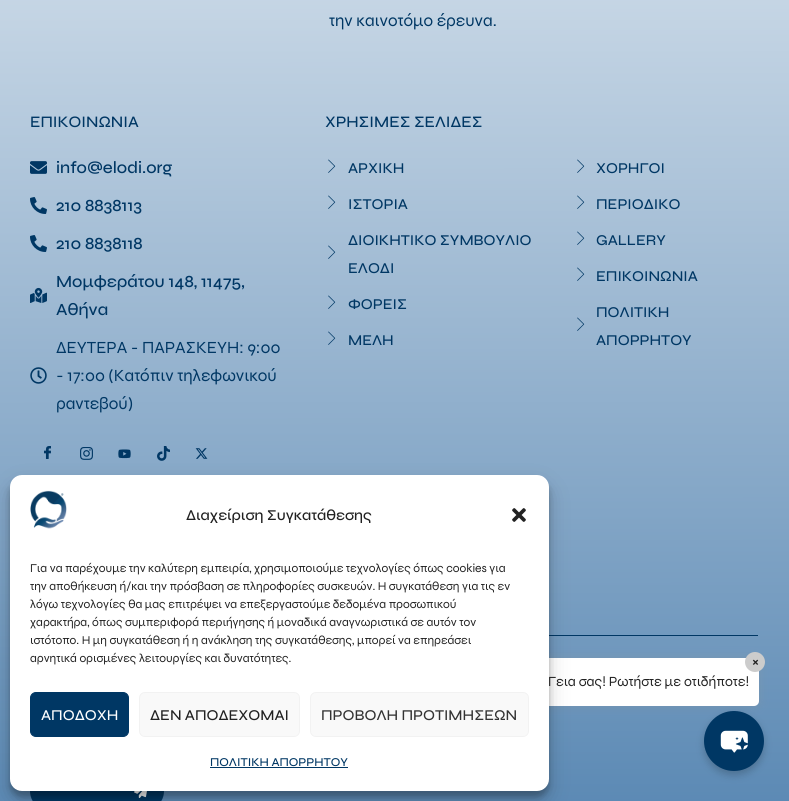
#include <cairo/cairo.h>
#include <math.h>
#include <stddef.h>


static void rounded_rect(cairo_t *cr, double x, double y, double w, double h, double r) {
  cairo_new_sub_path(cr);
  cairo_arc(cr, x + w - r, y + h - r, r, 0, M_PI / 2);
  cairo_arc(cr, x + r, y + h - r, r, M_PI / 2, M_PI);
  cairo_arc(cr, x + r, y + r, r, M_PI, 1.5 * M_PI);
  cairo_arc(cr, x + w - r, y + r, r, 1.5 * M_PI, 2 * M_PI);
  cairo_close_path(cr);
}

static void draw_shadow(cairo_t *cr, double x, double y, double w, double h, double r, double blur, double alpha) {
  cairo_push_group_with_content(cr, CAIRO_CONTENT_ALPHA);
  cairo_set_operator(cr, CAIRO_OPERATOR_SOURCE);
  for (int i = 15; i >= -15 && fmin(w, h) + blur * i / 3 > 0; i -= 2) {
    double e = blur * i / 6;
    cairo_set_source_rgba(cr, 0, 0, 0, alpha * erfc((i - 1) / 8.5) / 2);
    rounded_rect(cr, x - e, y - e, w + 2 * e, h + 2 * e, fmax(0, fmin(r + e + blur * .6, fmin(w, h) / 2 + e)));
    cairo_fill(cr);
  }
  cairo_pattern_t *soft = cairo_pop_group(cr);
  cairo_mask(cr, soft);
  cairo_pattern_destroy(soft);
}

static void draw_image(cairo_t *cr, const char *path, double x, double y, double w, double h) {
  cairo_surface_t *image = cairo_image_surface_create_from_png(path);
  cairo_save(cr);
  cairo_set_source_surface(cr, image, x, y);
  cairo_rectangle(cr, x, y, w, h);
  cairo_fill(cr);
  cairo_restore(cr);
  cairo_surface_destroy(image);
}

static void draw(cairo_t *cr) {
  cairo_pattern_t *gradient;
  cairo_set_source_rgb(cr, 1, 1, 1);
  cairo_paint(cr);
  gradient = cairo_pattern_create_linear(394, -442, 395, 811);
  cairo_pattern_add_color_stop_rgba(gradient, 0, 1, 1, 1, 1);
  cairo_pattern_add_color_stop_rgba(gradient, 1, 91 / 255.0, 137 / 255.0, 180 / 255.0, 1);
  cairo_set_source(cr, gradient);
  cairo_pattern_destroy(gradient);
  cairo_rectangle(cr, 0, 0, 789, 801);
  cairo_fill(cr);
  draw_image(cr, "images/1.png", 30, 161, 17, 13);
  draw_image(cr, "images/2.png", 30, 197, 17, 17);
  draw_image(cr, "images/3.png", 30, 235, 17, 17);
  draw_image(cr, "images/4.png", 30, 287, 17, 16);
  draw_image(cr, "images/5.png", 30, 367, 17, 17);
  draw_image(cr, "images/6.png", 44, 446, 7, 13);
  draw_image(cr, "images/7.png", 80, 447, 13, 13);
  draw_image(cr, "images/8.png", 118, 449, 13, 10);
  draw_image(cr, "images/9.png", 157, 446, 13, 15);
  draw_image(cr, "images/10.png", 195, 448, 13, 11);
  draw_image(cr, "images/11.png", 328, 159, 8, 14);
  draw_image(cr, "images/12.png", 328, 195, 8, 14);
  draw_image(cr, "images/13.png", 328, 245, 8, 14);
  draw_image(cr, "images/14.png", 328, 295, 8, 14);
  draw_image(cr, "images/15.png", 328, 331, 8, 14);
  draw_image(cr, "images/16.png", 577, 159, 8, 14);
  draw_image(cr, "images/17.png", 577, 195, 8, 14);
  draw_image(cr, "images/18.png", 577, 231, 8, 14);
  draw_image(cr, "images/19.png", 577, 267, 8, 14);
  draw_image(cr, "images/20.png", 577, 317, 8, 14);
  cairo_set_source_rgb(cr, 0, 55 / 255.0, 100 / 255.0);
  cairo_rectangle(cr, 549, 635, 209, 1);
  cairo_fill(cr);
  rounded_rect(cr, 30, 771, 134, 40, 20);
  cairo_fill(cr);
  draw_image(cr, "images/21.png", 134, 791, 13, 7);
  cairo_set_source_rgb(cr, 150 / 255.0, 150 / 255.0, 150 / 255.0);
  draw_shadow(cr, 538, 658, 221, 48, 5, 5, 0.3);
  cairo_set_source_rgb(cr, 1, 1, 1);
  rounded_rect(cr, 538, 658, 221, 48, 5);
  cairo_fill(cr);
  cairo_set_source_rgb(cr, 0, 0, 0);
  draw_shadow(cr, 10, 481, 539, 316, 12, 3, 0.23);
  draw_shadow(cr, 10, 485, 539, 316, 12, 10, 0.19);
  cairo_set_source_rgb(cr, 204 / 255.0, 204 / 255.0, 204 / 255.0);
  cairo_arc(cr, 755, 662, 10, 0, 2 * M_PI);
  cairo_fill(cr);
  cairo_set_source_rgb(cr, 0, 0, 0);
  draw_shadow(cr, 704, 715, 60, 60, 30, 4, 0.2);
  cairo_set_source_rgb(cr, 0, 55 / 255.0, 100 / 255.0);
  cairo_arc(cr, 734, 741, 30, 0, 2 * M_PI);
  cairo_fill(cr);
  draw_image(cr, "images/24.png", 720, 730, 28, 23);
  cairo_select_font_face(cr, "Syne", CAIRO_FONT_SLANT_NORMAL, CAIRO_FONT_WEIGHT_NORMAL);
  cairo_set_font_size(cr, 17);
  cairo_move_to(cr, 329, 26);
  cairo_show_text(cr, "την καινοτόμο έρευνα.");
  cairo_select_font_face(cr, "Syne Medium", CAIRO_FONT_SLANT_NORMAL, CAIRO_FONT_WEIGHT_NORMAL);
  cairo_set_font_size(cr, 16);
  cairo_move_to(cr, 30, 127);
  cairo_show_text(cr, "ΕΠΙΚΟΙΝΩΝΙΑ");
  cairo_set_font_size(cr, 17);
  cairo_move_to(cr, 56, 173);
  cairo_show_text(cr, "info@elodi.org");
  cairo_move_to(cr, 56, 211);
  cairo_show_text(cr, "210 8838113");
  cairo_move_to(cr, 56, 249);
  cairo_show_text(cr, "210 8838118");
  cairo_move_to(cr, 56, 287);
  cairo_show_text(cr, "Μομφεράτου 148, 11475,");
  cairo_move_to(cr, 56, 315);
  cairo_show_text(cr, "Αθήνα");
  cairo_select_font_face(cr, "Syne", CAIRO_FONT_SLANT_NORMAL, CAIRO_FONT_WEIGHT_NORMAL);
  cairo_move_to(cr, 56, 353);
  cairo_show_text(cr, "ΔΕΥΤΕΡΑ - ΠΑΡΑΣΚΕΥΗ: 9:00");
  cairo_move_to(cr, 56, 381);
  cairo_show_text(cr, "- 17:00 (Κατόπιν τηλεφωνικού");
  cairo_move_to(cr, 56, 409);
  cairo_show_text(cr, "ραντεβού)");
  cairo_select_font_face(cr, "Syne Medium", CAIRO_FONT_SLANT_NORMAL, CAIRO_FONT_WEIGHT_NORMAL);
  cairo_set_font_size(cr, 16);
  cairo_move_to(cr, 325, 127);
  cairo_show_text(cr, "ΧΡΗΣΙΜΕΣ ΣΕΛΙΔΕΣ");
  cairo_set_font_size(cr, 15);
  cairo_move_to(cr, 348, 173);
  cairo_show_text(cr, "ΑΡΧΙΚΗ");
  cairo_move_to(cr, 348, 209);
  cairo_show_text(cr, "ΙΣΤΟΡΙΑ");
  cairo_move_to(cr, 348, 245);
  cairo_show_text(cr, "ΔΙΟΙΚΗΤΙΚΟ ΣΥΜΒΟΥΛΙΟ");
  cairo_move_to(cr, 348, 273);
  cairo_show_text(cr, "ΕΛΟΔΙ");
  cairo_move_to(cr, 348, 309);
  cairo_show_text(cr, "ΦΟΡΕΙΣ");
  cairo_move_to(cr, 348, 345);
  cairo_show_text(cr, "ΜΕΛΗ");
  cairo_move_to(cr, 596, 173);
  cairo_show_text(cr, "ΧΟΡΗΓΟΙ");
  cairo_move_to(cr, 596, 209);
  cairo_show_text(cr, "ΠΕΡΙΟΔΙΚΟ");
  cairo_move_to(cr, 596, 245);
  cairo_show_text(cr, "GALLERY");
  cairo_move_to(cr, 596, 281);
  cairo_show_text(cr, "ΕΠΙΚΟΙΝΩΝΙΑ");
  cairo_move_to(cr, 596, 317);
  cairo_show_text(cr, "ΠΟΛΙΤΙΚΗ");
  cairo_move_to(cr, 596, 345);
  cairo_show_text(cr, "ΑΠΟΡΡΗΤΟΥ");
  cairo_select_font_face(cr, "Syne", CAIRO_FONT_SLANT_NORMAL, CAIRO_FONT_WEIGHT_BOLD);
  cairo_set_font_size(cr, 14);
  cairo_set_source_rgb(cr, 33 / 255.0, 33 / 255.0, 33 / 255.0);
  cairo_move_to(cr, 752, 666);
  cairo_show_text(cr, "×");
  cairo_select_font_face(cr, "Syne", CAIRO_FONT_SLANT_NORMAL, CAIRO_FONT_WEIGHT_NORMAL);
  cairo_move_to(cr, 548, 686);
  cairo_show_text(cr, "Γεια σας! Ρωτήστε με οτιδήποτε!");
  cairo_set_source_rgb(cr, 1, 1, 1);
  rounded_rect(cr, 10, 475, 539, 316, 12);
  cairo_fill(cr);
  cairo_set_font_size(cr, 12);
  cairo_set_source_rgb(cr, 33 / 255.0, 33 / 255.0, 33 / 255.0);
  cairo_move_to(cr, 30, 662);
  cairo_show_text(cr, "αρνητικά ορισμένες λειτουργίες και δυνατότητες.");
  cairo_move_to(cr, 30, 644);
  cairo_show_text(cr, "ιστότοπο. Η μη συγκατάθεση ή η ανάκληση της συγκατάθεσης, μπορεί να επηρεάσει");
  cairo_move_to(cr, 30, 626);
  cairo_show_text(cr, "χαρακτήρα, όπως συμπεριφορά περιήγησης ή μοναδικά αναγνωριστικά σε αυτόν τον");
  cairo_move_to(cr, 30, 608);
  cairo_show_text(cr, "λόγω τεχνολογίες θα μας επιτρέψει να επεξεργαστούμε δεδομένα προσωπικού");
  cairo_move_to(cr, 30, 590);
  cairo_show_text(cr, "την αποθήκευση ή/και την πρόσβαση σε πληροφορίες συσκευών. Η συγκατάθεση για τις εν");
  cairo_move_to(cr, 30, 572);
  cairo_show_text(cr, "Για να παρέχουμε την καλύτερη εμπειρία, χρησιμοποιούμε τεχνολογίες όπως cookies για");
  draw_image(cr, "images/23.png", 512, 508, 14, 14);
  cairo_select_font_face(cr, "Syne Medium", CAIRO_FONT_SLANT_NORMAL, CAIRO_FONT_WEIGHT_NORMAL);
  cairo_set_source_rgb(cr, 0, 55 / 255.0, 100 / 255.0);
  cairo_move_to(cr, 210, 766);
  cairo_show_text(cr, "ΠΟΛΙΤΙΚΗ ΑΠΟΡΡΗΤΟΥ");
  cairo_rectangle(cr, 210, 767, 138, 1);
  cairo_fill(cr);
  cairo_set_source_rgb(cr, 249 / 255.0, 249 / 255.0, 249 / 255.0);
  rounded_rect(cr, 310.5, 692.5, 218, 44, 5.5);
  cairo_fill_preserve(cr);
  cairo_set_source_rgb(cr, 242 / 255.0, 242 / 255.0, 242 / 255.0);
  cairo_set_line_width(cr, 1);
  cairo_stroke(cr);
  cairo_set_font_size(cr, 15);
  cairo_set_source_rgb(cr, 51 / 255.0, 51 / 255.0, 51 / 255.0);
  cairo_move_to(cr, 321, 720);
  cairo_show_text(cr, "ΠΡΟΒΟΛΗ ΠΡΟΤΙΜΗΣΕΩΝ");
  cairo_set_source_rgb(cr, 249 / 255.0, 249 / 255.0, 249 / 255.0);
  rounded_rect(cr, 139.5, 692.5, 160, 44, 5.5);
  cairo_fill_preserve(cr);
  cairo_set_source_rgb(cr, 242 / 255.0, 242 / 255.0, 242 / 255.0);
  cairo_stroke(cr);
  cairo_set_source_rgb(cr, 33 / 255.0, 33 / 255.0, 33 / 255.0);
  cairo_move_to(cr, 150, 720);
  cairo_show_text(cr, "ΔΕΝ ΑΠΟΔΕΧΟΜΑΙ");
  cairo_set_source_rgb(cr, 0, 55 / 255.0, 100 / 255.0);
  rounded_rect(cr, 30.5, 692.5, 98, 44, 5.5);
  cairo_fill_preserve(cr);
  cairo_stroke(cr);
  cairo_set_source_rgb(cr, 1, 1, 1);
  cairo_move_to(cr, 41, 720);
  cairo_show_text(cr, "ΑΠΟΔΟΧΗ");
  cairo_set_source_rgb(cr, 33 / 255.0, 33 / 255.0, 33 / 255.0);
  cairo_move_to(cr, 186, 520);
  cairo_show_text(cr, "Διαχείριση Συγκατάθεσης");
  draw_image(cr, "images/22.png", 30, 490, 37, 39);
}

int main(void) {
  cairo_surface_t *surface = cairo_image_surface_create(CAIRO_FORMAT_RGB24, 789, 801);
  cairo_t *cr = cairo_create(surface);
  cairo_font_options_t *options = cairo_font_options_create();
  cairo_font_options_set_hint_metrics(options, CAIRO_HINT_METRICS_OFF);
  cairo_font_options_set_hint_style(options, CAIRO_HINT_STYLE_NONE);
  cairo_set_font_options(cr, options);
  cairo_set_miter_limit(cr, 4);
  draw(cr);
  cairo_surface_write_to_png(surface, "out.png");
  cairo_font_options_destroy(options);
  cairo_destroy(cr);
  cairo_surface_destroy(surface);
  return 0;
}
